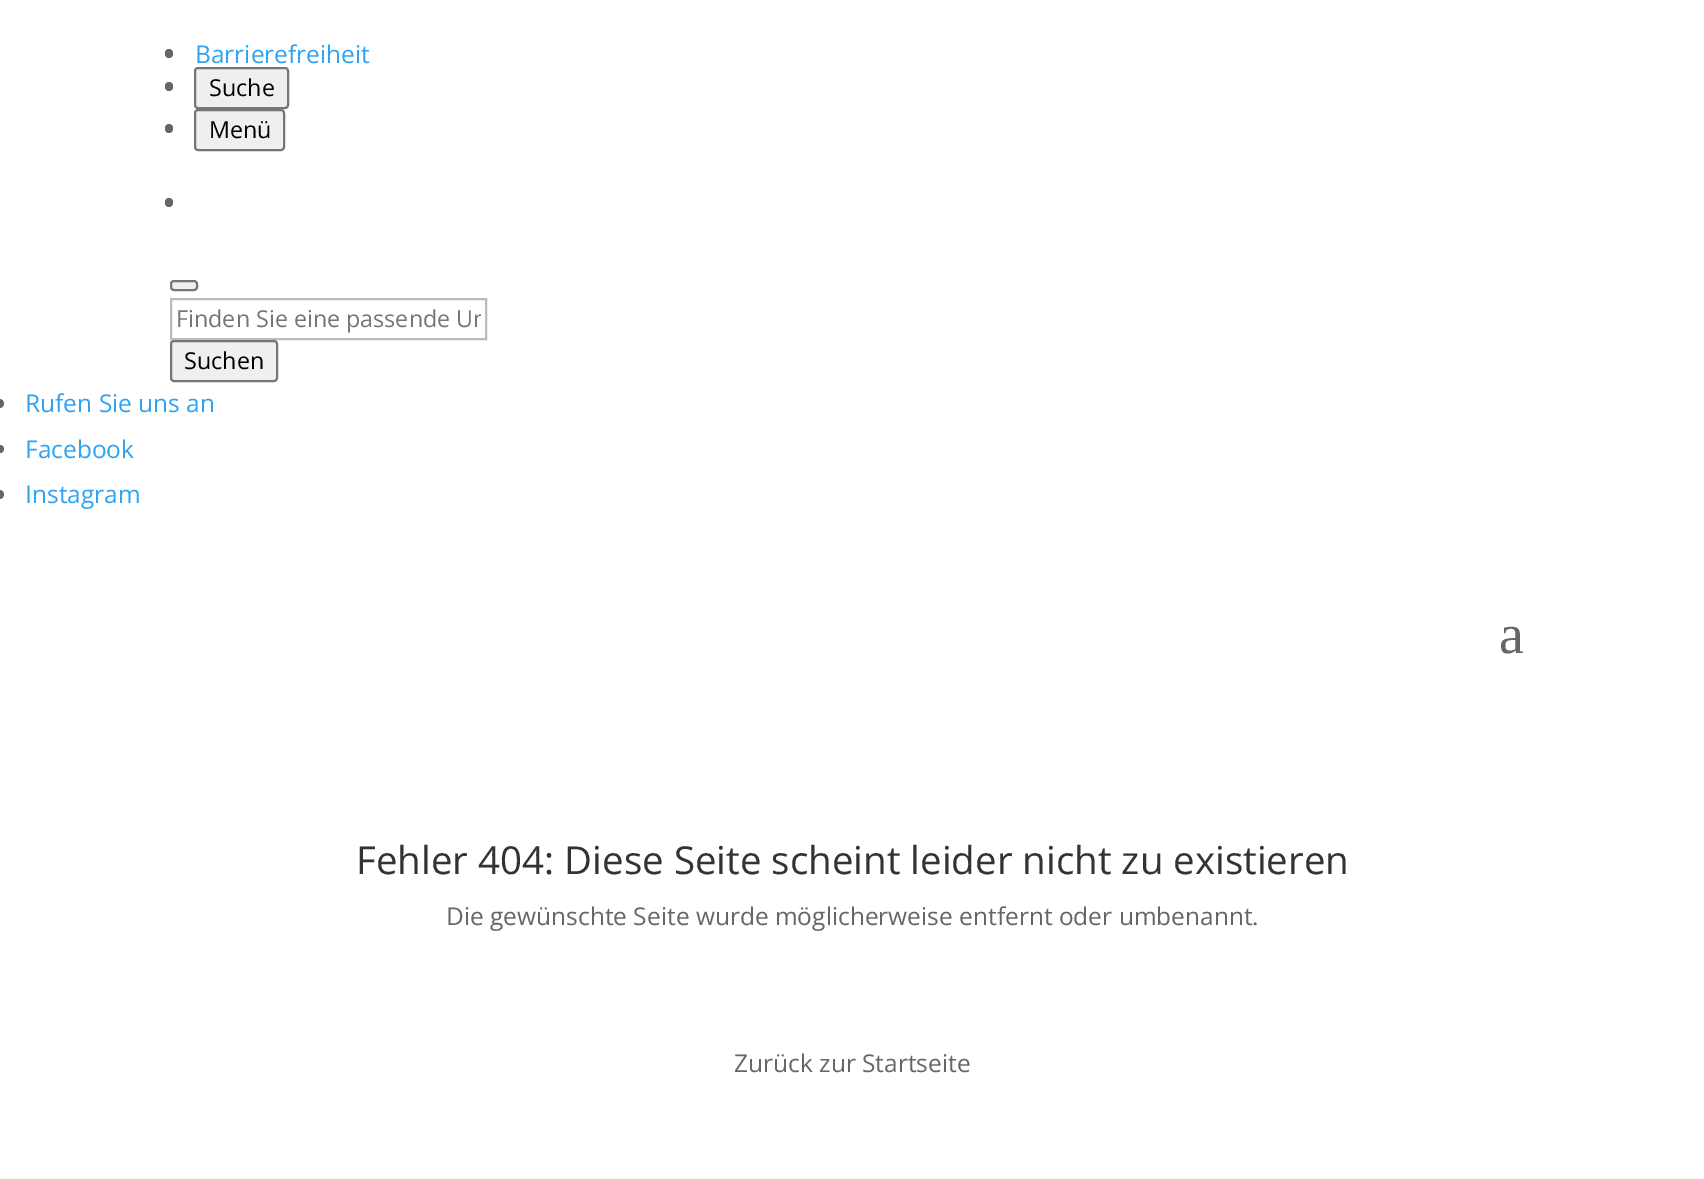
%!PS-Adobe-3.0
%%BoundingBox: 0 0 1704 1179
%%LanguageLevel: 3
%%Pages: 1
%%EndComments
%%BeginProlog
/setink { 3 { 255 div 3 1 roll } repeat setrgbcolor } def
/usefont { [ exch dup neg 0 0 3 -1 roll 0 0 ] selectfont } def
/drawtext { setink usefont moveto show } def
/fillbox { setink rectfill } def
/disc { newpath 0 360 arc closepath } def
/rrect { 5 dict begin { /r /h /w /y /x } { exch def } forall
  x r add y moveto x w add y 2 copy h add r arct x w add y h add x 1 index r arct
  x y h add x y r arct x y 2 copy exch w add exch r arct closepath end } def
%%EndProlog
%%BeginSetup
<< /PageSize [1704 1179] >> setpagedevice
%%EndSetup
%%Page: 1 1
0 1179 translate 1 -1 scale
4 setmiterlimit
0 0 1704 1179 255 255 255 fillbox
102 102 102 setink
165 49 8 9 4 rrect fill
(Barrierefreiheit) 195 63 /OpenSans-Regular 24.5 46 163 242 drawtext
102 102 102 setink
165 82 8 9 4 rrect fill
239 239 239 setink
195 68 93 40 3 rrect gsave fill grestore
118 118 118 setink
2 setlinewidth
stroke
(Suche) 209 96 /OpenSans-Regular 23.3 0 0 0 drawtext
102 102 102 setink
165 124 8 9 4 rrect fill
239 239 239 setink
195 110 89 40 3 rrect gsave fill grestore
118 118 118 setink
stroke
(Menü) 209 138 /OpenSans-Regular 23.3 0 0 0 drawtext
102 102 102 setink
165 198 8 9 4 rrect fill
239 239 239 setink
171 281 26 9 3 rrect gsave fill grestore
118 118 118 setink
stroke
187 187 187 setink
171 299 315 40 rectstroke
gsave
175 303 306 31 rectclip
(Finden Sie eine passende Un) 176 327 /OpenSans-Regular 23.3 117 117 117 drawtext
grestore
239 239 239 setink
171 341 106 40 3 rrect gsave fill grestore
118 118 118 setink
stroke
(Suchen) 184 369 /OpenSans-Regular 23.3 0 0 0 drawtext
102 102 102 setink
-0.5 403.5 4.5 disc fill
(Rufen Sie uns an) 25 412 /OpenSans-Regular 24.5 46 163 242 drawtext
102 102 102 setink
0 449 4 disc fill
(Facebook) 25 458 /OpenSans-Regular 24.5 46 163 242 drawtext
102 102 102 setink
-0.5 494.5 4.5 disc fill
(Instagram) 25 503 /OpenSans-Regular 24.5 46 163 242 drawtext
(a) 1499 653 /LiberationSerif-Regular 56 102 102 102 drawtext
(Fehler 404: Diese Seite scheint leider nicht zu existieren) 356 874 /OpenSans-Regular 38.5 51 51 51 drawtext
(Die gewünschte Seite wurde möglicherweise entfernt oder umbenannt.) 446 925 /OpenSans-Regular 24.5 102 102 102 drawtext
(Zurück zur Startseite) 734 1072 /OpenSans-Regular 24.5 102 102 102 drawtext
showpage
%%EOF
